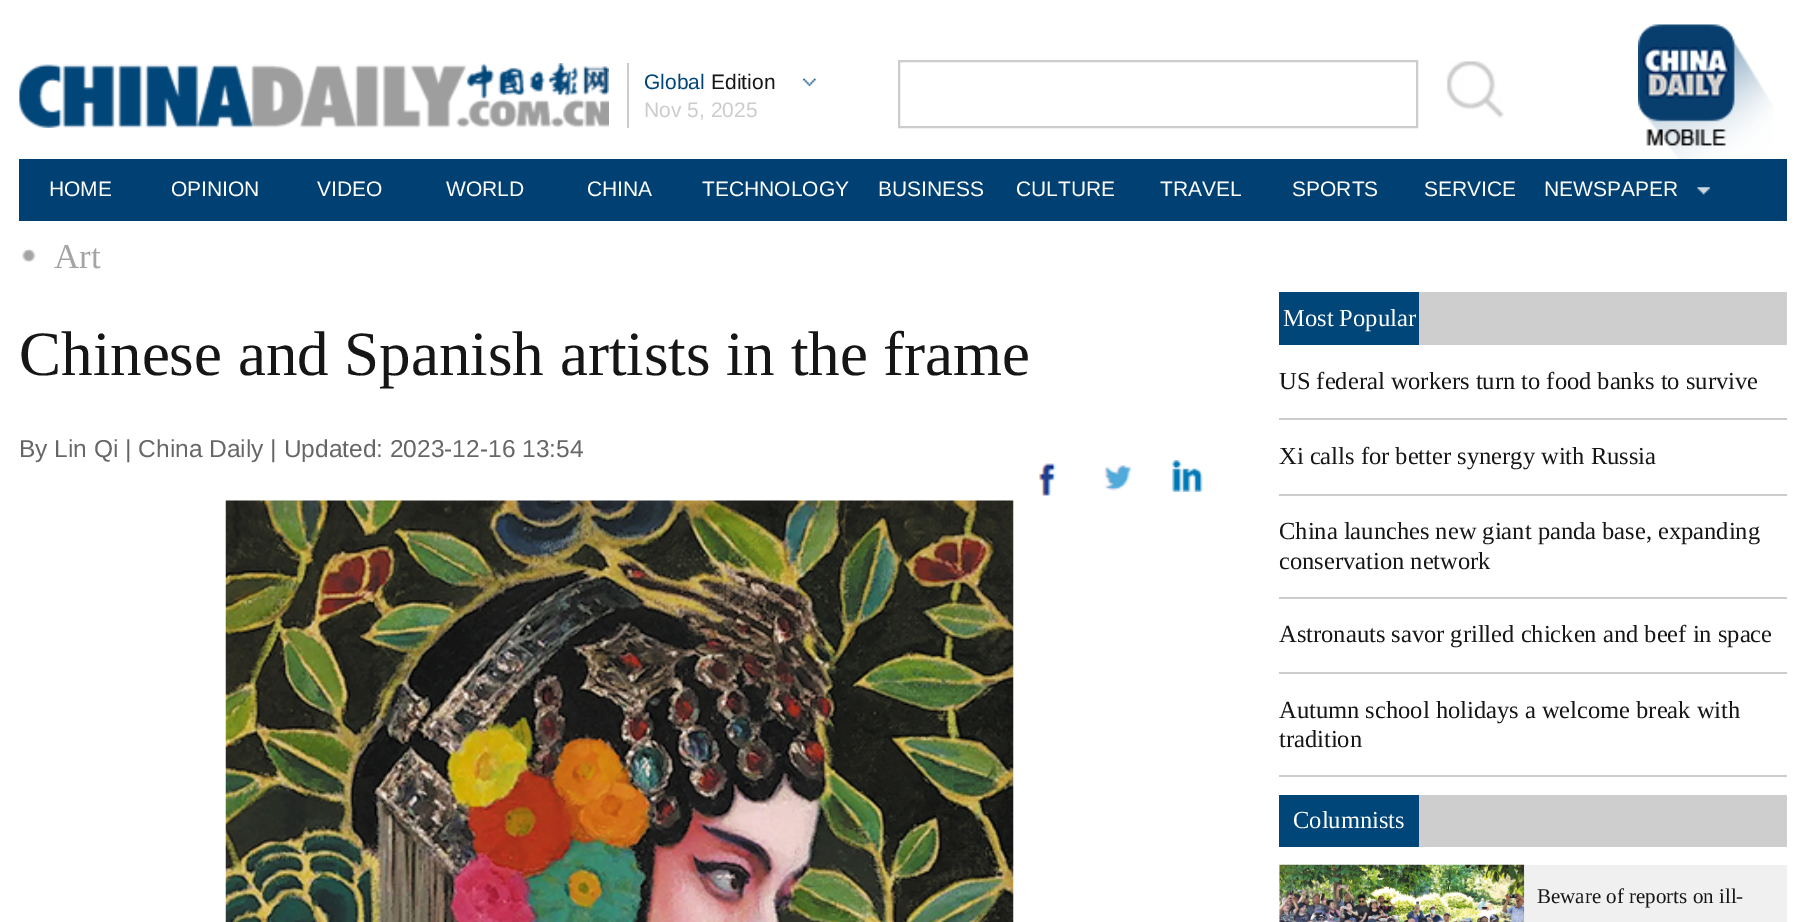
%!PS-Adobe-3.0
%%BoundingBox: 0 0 1805 922
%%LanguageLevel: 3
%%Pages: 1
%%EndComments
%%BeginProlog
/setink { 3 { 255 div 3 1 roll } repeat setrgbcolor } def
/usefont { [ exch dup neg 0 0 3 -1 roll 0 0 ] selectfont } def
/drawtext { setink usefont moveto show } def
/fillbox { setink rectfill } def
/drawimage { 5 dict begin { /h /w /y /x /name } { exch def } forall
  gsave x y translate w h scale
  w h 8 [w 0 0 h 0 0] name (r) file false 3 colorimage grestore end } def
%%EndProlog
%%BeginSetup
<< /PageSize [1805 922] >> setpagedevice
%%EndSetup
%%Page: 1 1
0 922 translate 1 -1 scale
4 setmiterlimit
0 0 1805 922 255 255 255 fillbox
627 63 2 65 204 204 204 fillbox
(assets/img1.rgb) 19 63 590 65 drawimage
(assets/img2.rgb) 803 78 13 8 drawimage
(Global) 644 89 /LiberationSans-Regular 21 0 70 121 drawtext
(Edition) 711 89 /LiberationSans-Regular 21 22 22 22 drawtext
(Nov 5, 2025) 644 117 /LiberationSans-Regular 21 204 204 204 drawtext
2 setlinewidth
899 61 518 66 rectstroke
(assets/img3.rgb) 1446 61 58 57 drawimage
(assets/img4.rgb) 1638 24 135 135 drawimage
19 159 1768 62 1 64 115 fillbox
(HOME) 49 196 /LiberationSans-Regular 21 255 255 255 drawtext
(OPINION) 171 196 /LiberationSans-Regular 21 255 255 255 drawtext
(VIDEO) 317 196 /LiberationSans-Regular 21 255 255 255 drawtext
(WORLD) 446 196 /LiberationSans-Regular 21 255 255 255 drawtext
(CHINA) 587 196 /LiberationSans-Regular 21 255 255 255 drawtext
(TECHNOLOGY) 702 196 /LiberationSans-Regular 21 255 255 255 drawtext
(BUSINESS) 878 196 /LiberationSans-Regular 21 255 255 255 drawtext
(CULTURE) 1016 196 /LiberationSans-Regular 21 255 255 255 drawtext
(TRAVEL) 1160 196 /LiberationSans-Regular 21 255 255 255 drawtext
(SPORTS) 1292 196 /LiberationSans-Regular 21 255 255 255 drawtext
(SERVICE) 1424 196 /LiberationSans-Regular 21 255 255 255 drawtext
(assets/img5.rgb) 1697 187 13 8 drawimage
(NEWSPAPER) 1544 196 /LiberationSans-Regular 21 255 255 255 drawtext
(assets/img6.rgb) 22 248 14 15 drawimage
(Art) 54 268 /LiberationSerif-Regular 35 164 164 166 drawtext
(Chinese and Spanish artists in the frame) 19 375 /LiberationSerif-Regular 63 22 22 22 drawtext
(By Lin Qi | China Daily | Updated: 2023-12-16 13:54) 19 457 /LiberationSans-Regular 24.5 102 102 102 drawtext
(assets/img7.rgb) 1037 463 19 33 drawimage
(assets/img8.rgb) 1104 465 29 26 drawimage
(assets/img9.rgb) 1172 460 31 32 drawimage
(assets/img10.rgb) 225 500 789 422 drawimage
1419 292 368 53 206 206 207 fillbox
1279 292 140 53 0 70 121 fillbox
(Most Popular) 1283 326 /LiberationSerif-Regular 24.5 255 255 255 drawtext
1279 418 508 2 204 204 204 fillbox
(US federal workers turn to food banks to survive) 1279 389 /LiberationSerif-Regular 24.5 22 22 22 drawtext
1279 494 508 2 204 204 204 fillbox
(Xi calls for better synergy with Russia) 1279 464 /LiberationSerif-Regular 24.5 22 22 22 drawtext
1279 597 508 2 204 204 204 fillbox
(China launches new giant panda base, expanding) 1279 539 /LiberationSerif-Regular 24.5 22 22 22 drawtext
(conservation network) 1279 569 /LiberationSerif-Regular 24.5 22 22 22 drawtext
1279 672 508 2 204 204 204 fillbox
(Astronauts savor grilled chicken and beef in space) 1279 642 /LiberationSerif-Regular 24.5 22 22 22 drawtext
1279 775 508 2 204 204 204 fillbox
(Autumn school holidays a welcome break with) 1279 718 /LiberationSerif-Regular 24.5 22 22 22 drawtext
(tradition) 1279 747 /LiberationSerif-Regular 24.5 22 22 22 drawtext
1419 795 368 52 206 206 207 fillbox
1279 795 140 52 0 70 121 fillbox
(Columnists) 1293 828 /LiberationSerif-Regular 24.5 255 255 255 drawtext
1524 865 263 57 240 240 240 fillbox
(assets/img11.rgb) 1279 864 246 58 drawimage
(Beware of reports on ill-) 1537 903 /LiberationSerif-Regular 21 22 22 22 drawtext
showpage
%%EOF
